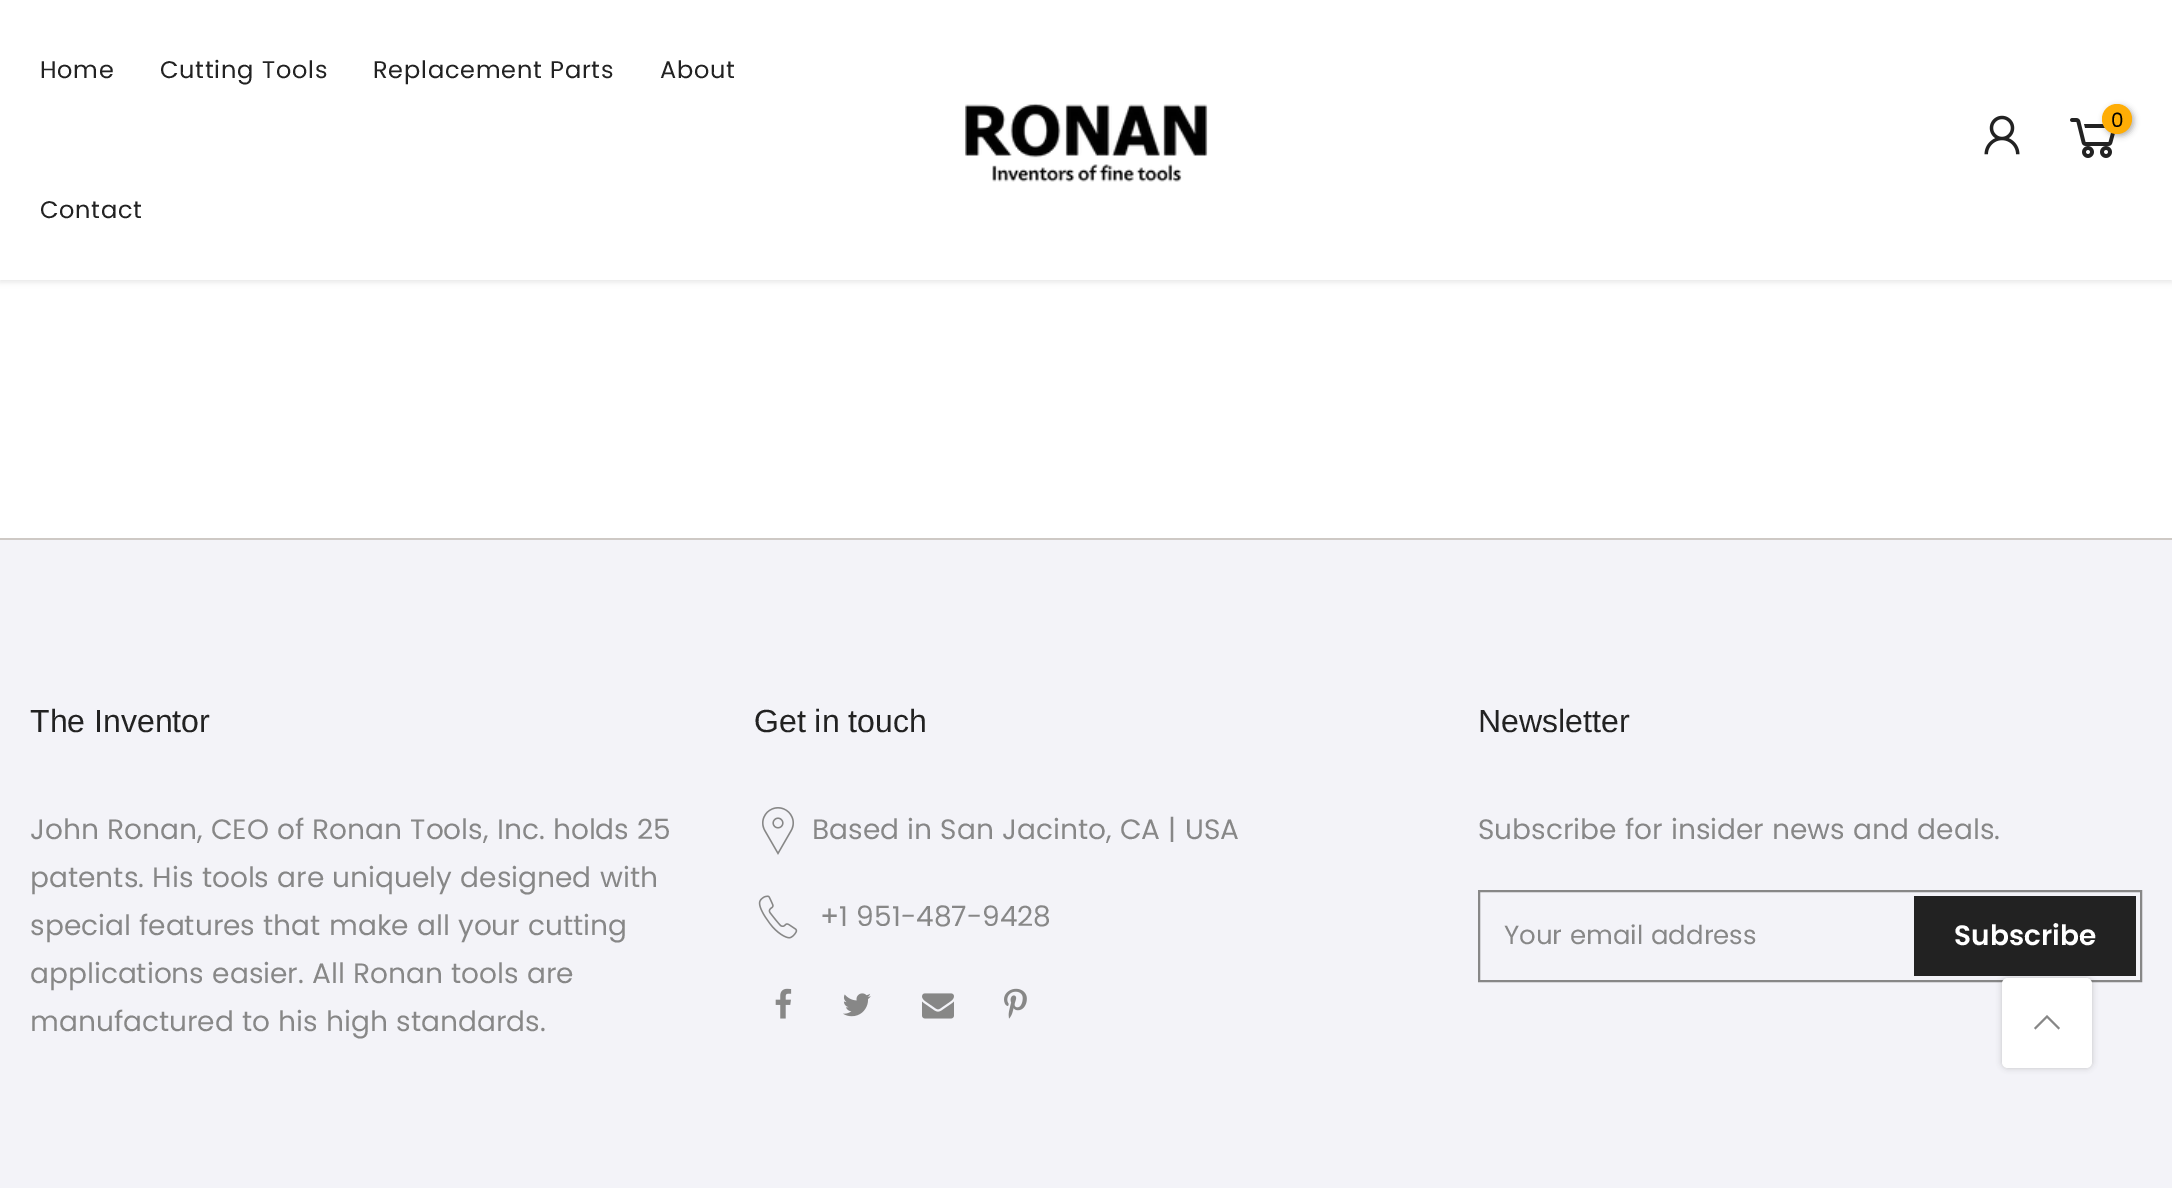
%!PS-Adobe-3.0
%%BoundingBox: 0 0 2172 1188
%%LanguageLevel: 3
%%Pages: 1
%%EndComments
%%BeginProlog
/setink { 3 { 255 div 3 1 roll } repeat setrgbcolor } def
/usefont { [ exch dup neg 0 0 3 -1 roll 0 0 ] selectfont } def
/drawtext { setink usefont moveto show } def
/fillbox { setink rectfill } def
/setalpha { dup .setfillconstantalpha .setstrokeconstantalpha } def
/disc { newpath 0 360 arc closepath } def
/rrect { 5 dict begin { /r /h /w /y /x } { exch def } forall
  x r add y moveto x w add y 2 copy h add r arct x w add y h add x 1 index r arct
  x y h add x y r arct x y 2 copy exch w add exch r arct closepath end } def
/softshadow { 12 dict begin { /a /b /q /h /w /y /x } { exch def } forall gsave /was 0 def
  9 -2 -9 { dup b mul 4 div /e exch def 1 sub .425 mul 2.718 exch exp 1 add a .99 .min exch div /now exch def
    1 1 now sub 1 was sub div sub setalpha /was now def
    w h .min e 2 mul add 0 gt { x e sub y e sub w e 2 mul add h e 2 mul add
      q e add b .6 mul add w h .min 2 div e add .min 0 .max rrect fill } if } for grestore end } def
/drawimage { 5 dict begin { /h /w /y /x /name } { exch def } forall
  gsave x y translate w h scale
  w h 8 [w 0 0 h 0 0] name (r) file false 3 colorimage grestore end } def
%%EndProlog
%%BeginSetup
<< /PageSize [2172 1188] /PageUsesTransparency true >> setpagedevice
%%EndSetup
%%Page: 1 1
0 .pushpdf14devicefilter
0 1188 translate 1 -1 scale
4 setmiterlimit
0 0 2172 1188 255 255 255 fillbox
0 0 0 setink
0 2 2172 280 0 3 0.1 softshadow
0 0 2172 280 255 255 255 fillbox
/Poppins-Regular 24 usefont
34 34 34 setink
40 78 moveto 0.75 0 (Home) ashow
160 78 moveto 0.75 0 (Cutting Tools) ashow
373 78 moveto 0.75 0 (Replacement Parts) ashow
660 78 moveto 0.75 0 (About) ashow
40 218 moveto 0.75 0 (Contact) ashow
(assets/img1.rgb) 965 103 243 79 drawimage
(assets/img2.rgb) 1984 115 36 40 drawimage
(assets/img3.rgb) 2070 118 45 40 drawimage
0 0 0 setink
2104 106 30 30 15 3 0.3 softshadow
255 173 5 setink
2117 119 15 disc fill
(0) 2111 127 /Poppins-Regular 20 0 0 0 drawtext
0 538 2172 2 206 201 197 fillbox
0 540 2172 648 243 243 248 fillbox
(The Inventor) 30 732 /LiberationSans-Regular 32 34 34 34 drawtext
(John Ronan, CEO of Ronan Tools, Inc. holds 25) 30 839 /Poppins-Regular 28 135 135 135 drawtext
(patents. His tools are uniquely designed with) 30 887 /Poppins-Regular 28 135 135 135 drawtext
(special features that make all your cutting) 30 935 /Poppins-Regular 28 135 135 135 drawtext
(applications easier. All Ronan tools are) 30 983 /Poppins-Regular 28 135 135 135 drawtext
(manufactured to his high standards.) 30 1031 /Poppins-Regular 28 135 135 135 drawtext
(Get in touch) 754 732 /LiberationSans-Regular 32 34 34 34 drawtext
(assets/img4.rgb) 762 807 32 48 drawimage
(Based in San Jacinto, CA | USA) 812 839 /Poppins-Regular 28 135 135 135 drawtext
(assets/img5.rgb) 758 895 40 44 drawimage
(+1 951-487-9428) 820 926 /Poppins-Regular 28 135 135 135 drawtext
(assets/img6.rgb) 775 988 17 31 drawimage
(assets/img7.rgb) 843 993 28 24 drawimage
(assets/img8.rgb) 922 993 32 26 drawimage
(assets/img9.rgb) 1004 988 23 31 drawimage
(Newsletter) 1478 732 /LiberationSans-Regular 32 34 34 34 drawtext
(Subscribe for insider news and deals.) 1478 839 /Poppins-Regular 28 135 135 135 drawtext
2 setlinewidth
1479 891 662 90 rectstroke
(Your email address) 1504 944 /Poppins-Regular 26 135 135 135 drawtext
1914 896 222 80 34 34 34 fillbox
(Subscribe) 1954 945 /Poppins-SemiBold 28 255 255 255 drawtext
0 0 0 setink
2002 978 90 90 6 3 0.2 softshadow
255 255 255 setink
2002 978 90 90 6 rrect fill
135 135 135 setink
2048.5 1016.5 moveto 2047 1015 lineto 2034 1028 lineto 2035.5 1029.5 lineto 2047 1018 lineto 2058.5 1029.5 lineto 2060 1028 lineto closepath fill
.poppdf14devicefilter showpage
%%EOF
